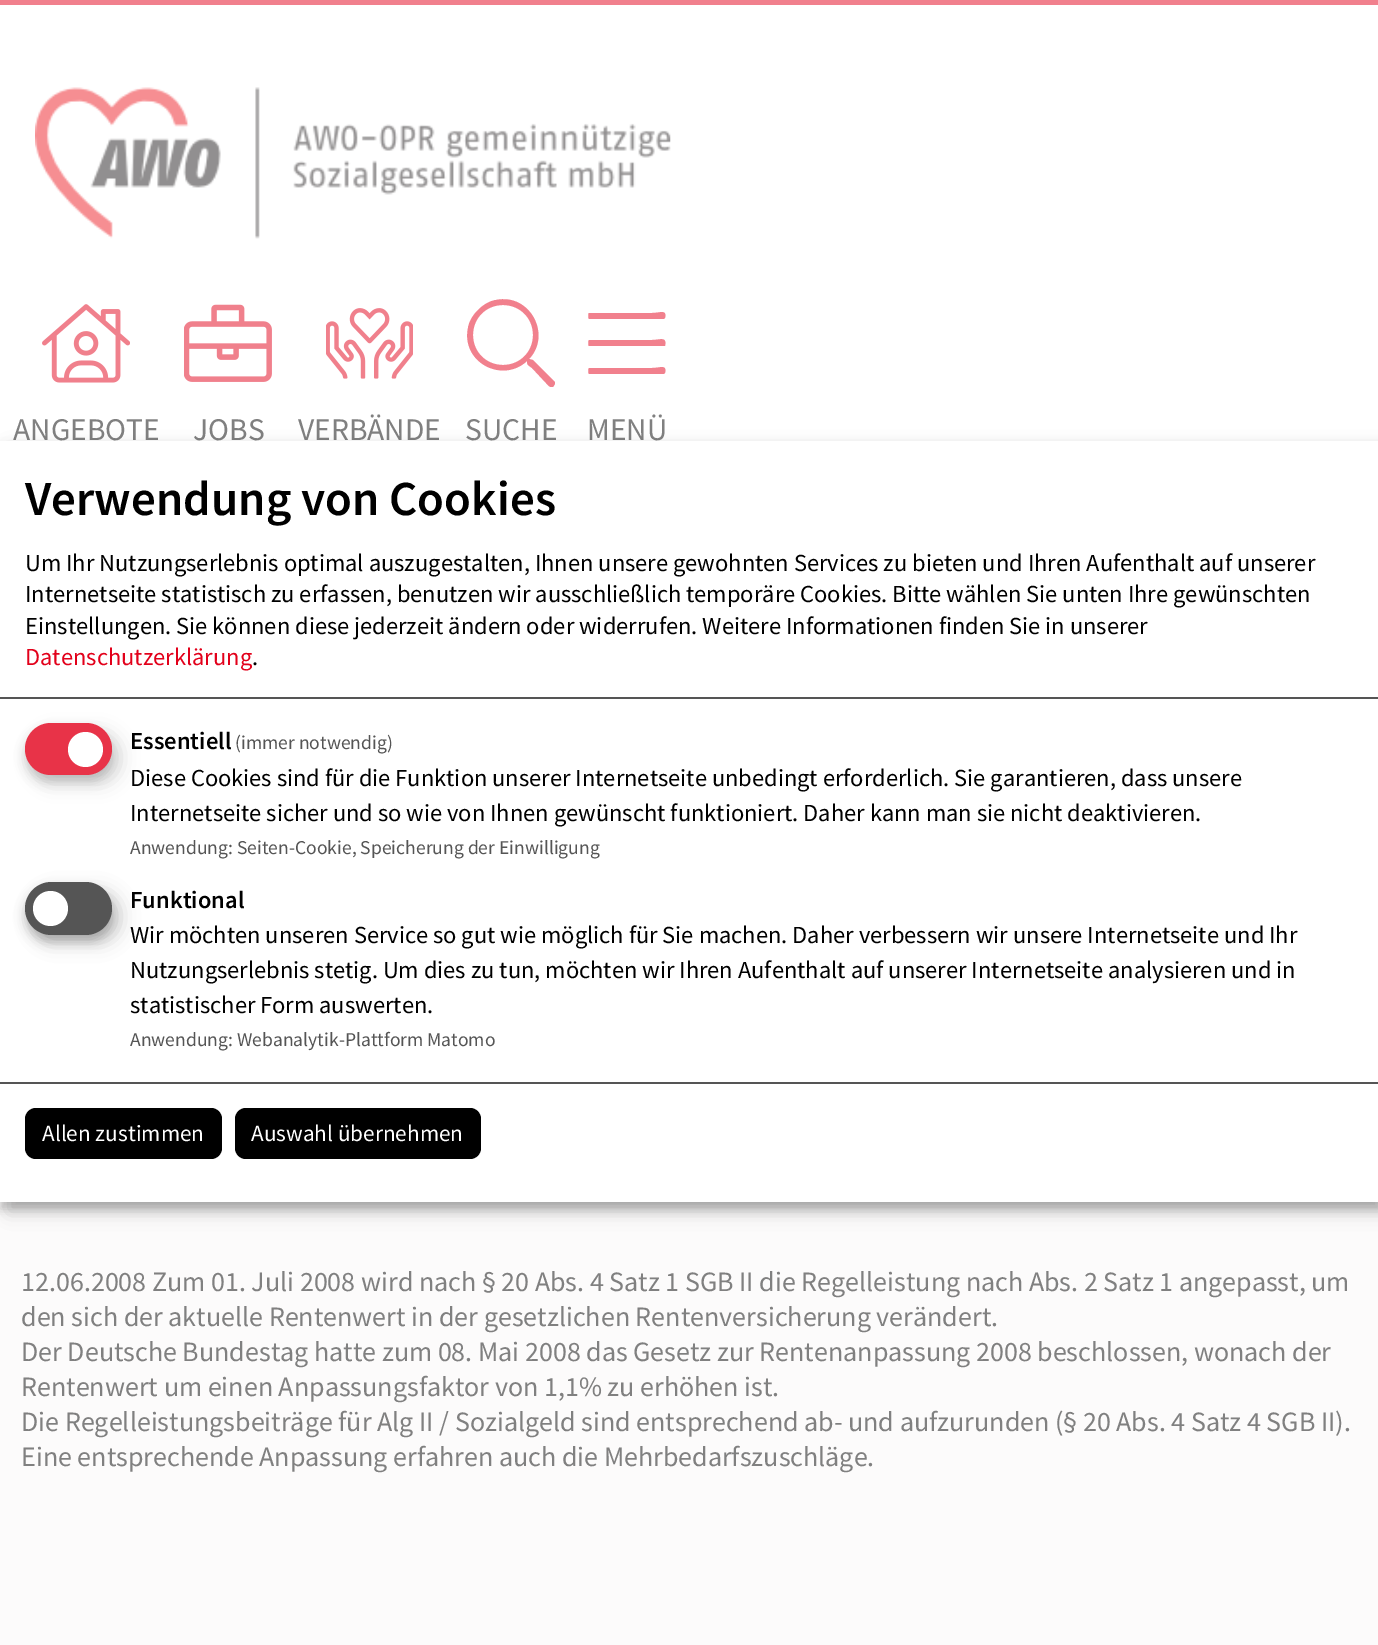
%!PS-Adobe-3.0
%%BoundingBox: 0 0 1378 1645
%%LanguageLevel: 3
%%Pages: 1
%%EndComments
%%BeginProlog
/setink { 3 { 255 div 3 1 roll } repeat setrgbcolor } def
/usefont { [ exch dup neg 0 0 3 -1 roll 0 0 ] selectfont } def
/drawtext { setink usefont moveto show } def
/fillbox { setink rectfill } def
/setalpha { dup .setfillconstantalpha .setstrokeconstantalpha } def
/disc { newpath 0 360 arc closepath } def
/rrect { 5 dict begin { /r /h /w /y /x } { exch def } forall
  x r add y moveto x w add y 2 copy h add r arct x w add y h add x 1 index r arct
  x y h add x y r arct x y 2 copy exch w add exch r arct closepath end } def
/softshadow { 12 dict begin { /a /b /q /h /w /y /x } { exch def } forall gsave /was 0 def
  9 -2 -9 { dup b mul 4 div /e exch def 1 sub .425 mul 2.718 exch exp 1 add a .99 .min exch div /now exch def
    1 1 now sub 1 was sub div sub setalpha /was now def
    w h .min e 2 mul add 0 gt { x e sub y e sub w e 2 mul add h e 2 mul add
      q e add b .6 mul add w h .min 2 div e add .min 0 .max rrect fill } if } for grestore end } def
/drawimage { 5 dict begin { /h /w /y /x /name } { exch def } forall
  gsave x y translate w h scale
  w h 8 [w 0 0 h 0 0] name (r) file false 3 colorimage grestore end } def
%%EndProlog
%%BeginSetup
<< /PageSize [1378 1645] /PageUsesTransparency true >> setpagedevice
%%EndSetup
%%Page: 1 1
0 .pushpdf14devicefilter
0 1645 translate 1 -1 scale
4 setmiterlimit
0 0 1378 1645 252 251 251 fillbox
0 5 1378 436 255 255 255 fillbox
0 0 1378 5 241 128 141 fillbox
(assets/img1.rgb) 35 87 636 152 drawimage
(assets/img2.rgb) 42 304 88 79 drawimage
(ANGEBOTE) 13 440 /SourceSansPro-Regular 31.5 128 128 128 drawtext
(assets/img3.rgb) 184 304 88 78 drawimage
(JOBS) 193 440 /SourceSansPro-Regular 31.5 128 128 128 drawtext
(assets/img4.rgb) 326 308 87 71 drawimage
(VERBÄNDE) 298 440 /SourceSansPro-Regular 31.5 128 128 128 drawtext
gsave
467 299 90 88 rectclip
241 128 141 setink
555 382 moveto 533 360 lineto 529 359 lineto 552 335 530 293 496 300 curveto 489 301 483 305 478 310 curveto 473 315 469 321 468 328 curveto 461 362 502 384 527 361 curveto 527 365 528 365 532 368 curveto 546 383 lineto 547 384 551 389 553 387 curveto 555 384 lineto closepath 503 365 moveto 486 365 473 352 473 335 curveto 473 318 486 305 503 305 curveto 520 305 533 318 533 335 curveto 533 352 520 365 503 365 curveto closepath fill
grestore
(SUCHE) 465 440 /SourceSansPro-Regular 31.5 128 128 128 drawtext
241 128 141 setink
664 319 moveto 589 319 lineto 588 318 588 313 589 313 curveto 652 313 lineto 660 313 667 309 665 318 curveto closepath 664 346 moveto 589 346 lineto 588 346 588 341 589 340 curveto 652 340 lineto 660 340 667 336 665 346 curveto closepath 664 374 moveto 589 374 lineto 588 373 588 369 589 368 curveto 652 368 lineto 660 368 667 364 665 373 curveto closepath fill
(MENÜ) 587 440 /SourceSansPro-Regular 31.5 128 128 128 drawtext
(12.06.2008 Zum 01. Juli 2008 wird nach § 20 Abs. 4 Satz 1 SGB II die Regelleistung nach Abs. 2 Satz 1 angepasst, um) 21 1291 /SourceSansPro-Regular 28 128 128 128 drawtext
(den sich der aktuelle Rentenwert in der gesetzlichen Rentenversicherung verändert.) 21 1326 /SourceSansPro-Regular 28 128 128 128 drawtext
(Der Deutsche Bundestag hatte zum 08. Mai 2008 das Gesetz zur Rentenanpassung 2008 beschlossen, wonach der) 21 1361 /SourceSansPro-Regular 28 128 128 128 drawtext
(Rentenwert um einen Anpassungsfaktor von 1,1% zu erhöhen ist.) 21 1396 /SourceSansPro-Regular 28 128 128 128 drawtext
(Die Regelleistungsbeiträge für Alg II / Sozialgeld sind entsprechend ab- und aufzurunden \(§ 20 Abs. 4 Satz 4 SGB II\).) 21 1431 /SourceSansPro-Regular 28 128 128 128 drawtext
(Eine entsprechende Anpassung erfahren auch die Mehrbedarfszuschläge.) 21 1466 /SourceSansPro-Regular 28 128 128 128 drawtext
0 0 0 setink
9 450 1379 761 0 9 0.19 softshadow
0 448 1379 761 0 5 0.2 softshadow
0 441 1378 761 255 255 255 fillbox
0 697 1378 2 85 85 85 fillbox
(Verwendung von Cookies) 25 515 /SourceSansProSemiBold-SemiBold 49 0 0 0 drawtext
(Um Ihr Nutzungserlebnis optimal auszugestalten, Ihnen unsere gewohnten Services zu bieten und Ihren Aufenthalt auf unserer) 25 571 /SourceSansPro-Regular 24.5 0 0 0 drawtext
(Internetseite statistisch zu erfassen, benutzen wir ausschließlich temporäre Cookies. Bitte wählen Sie unten Ihre gewünschten) 25 602 /SourceSansPro-Regular 24.5 0 0 0 drawtext
(Einstellungen. Sie können diese jederzeit ändern oder widerrufen. Weitere Informationen finden Sie in unserer) 25 634 /SourceSansPro-Regular 24.5 0 0 0 drawtext
(Datenschutzerklärung) 25 665 /SourceSansPro-Regular 24.5 226 0 26 drawtext
(.) 252 665 /SourceSansPro-Regular 24.5 0 0 0 drawtext
33 732 88 52 26 9 0.15 softshadow
51 51 51 setink
25 730 87 52 26 5 0.2 softshadow
232 51 72 setink
25 723 87 52 26 rrect fill
255 255 255 setink
85.5 749.5 17.5 disc fill
(Essentiell) 130 749 /SourceSansProSemiBold-SemiBold 24.5 0 0 0 drawtext
(\(immer notwendig\)) 235 749 /SourceSansPro-Regular 19.6 85 85 85 drawtext
(Diese Cookies sind für die Funktion unserer Internetseite unbedingt erforderlich. Sie garantieren, dass unsere) 130 786 /SourceSansPro-Regular 24.5 0 0 0 drawtext
(Internetseite sicher und so wie von Ihnen gewünscht funktioniert. Daher kann man sie nicht deaktivieren.) 130 821 /SourceSansPro-Regular 24.5 0 0 0 drawtext
(Anwendung: Seiten-Cookie, Speicherung der Einwilligung) 130 854 /SourceSansPro-Regular 19.6 85 85 85 drawtext
0 0 0 setink
33 891 88 52 26 9 0.19 softshadow
25 889 87 53 26.5 5 0.2 softshadow
85 85 85 setink
25 882 87 53 26.5 rrect fill
255 255 255 setink
50.5 908.5 17.5 disc fill
(Funktional) 130 908 /SourceSansProSemiBold-SemiBold 24.5 0 0 0 drawtext
(Wir möchten unseren Service so gut wie möglich für Sie machen. Daher verbessern wir unsere Internetseite und Ihr) 130 943 /SourceSansPro-Regular 24.5 0 0 0 drawtext
(Nutzungserlebnis stetig. Um dies zu tun, möchten wir Ihren Aufenthalt auf unserer Internetseite analysieren und in) 130 978 /SourceSansPro-Regular 24.5 0 0 0 drawtext
(statistischer Form auswerten.) 130 1013 /SourceSansPro-Regular 24.5 0 0 0 drawtext
(Anwendung: Webanalytik-Plattform Matomo) 130 1046 /SourceSansPro-Regular 19.6 85 85 85 drawtext
0 1082 1378 2 85 85 85 fillbox
0 0 0 setink
25 1108 197 51 11 rrect fill
(Allen zustimmen) 42 1141 /SourceSansPro-Regular 23.25 255 255 255 drawtext
0 0 0 setink
235 1108 246 51 11 rrect fill
(Auswahl übernehmen) 251 1141 /SourceSansPro-Regular 23.25 255 255 255 drawtext
.poppdf14devicefilter showpage
%%EOF
